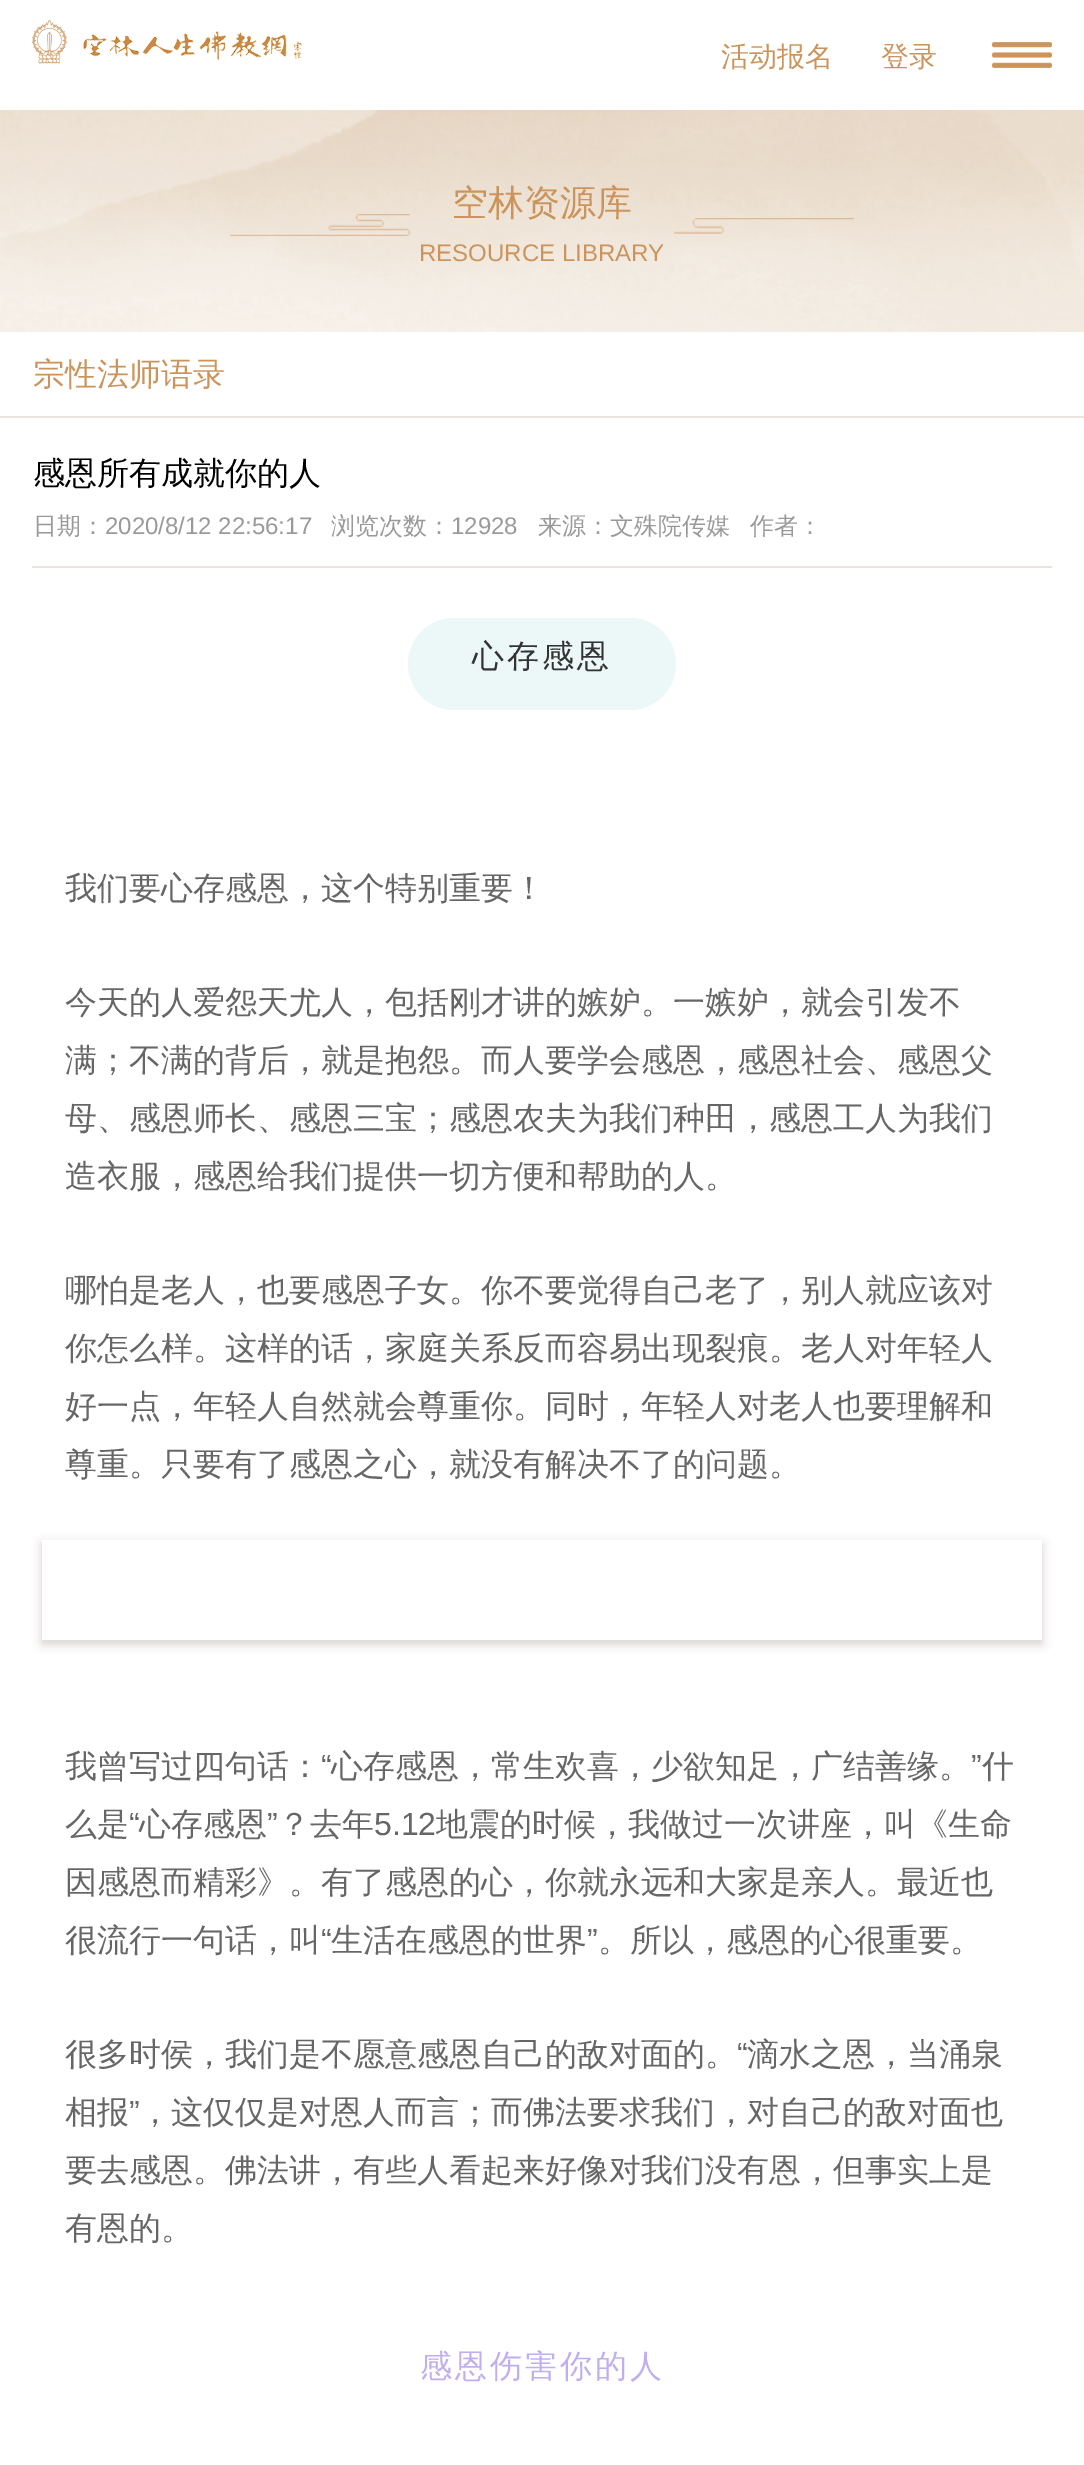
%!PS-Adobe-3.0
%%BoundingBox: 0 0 1084 2465
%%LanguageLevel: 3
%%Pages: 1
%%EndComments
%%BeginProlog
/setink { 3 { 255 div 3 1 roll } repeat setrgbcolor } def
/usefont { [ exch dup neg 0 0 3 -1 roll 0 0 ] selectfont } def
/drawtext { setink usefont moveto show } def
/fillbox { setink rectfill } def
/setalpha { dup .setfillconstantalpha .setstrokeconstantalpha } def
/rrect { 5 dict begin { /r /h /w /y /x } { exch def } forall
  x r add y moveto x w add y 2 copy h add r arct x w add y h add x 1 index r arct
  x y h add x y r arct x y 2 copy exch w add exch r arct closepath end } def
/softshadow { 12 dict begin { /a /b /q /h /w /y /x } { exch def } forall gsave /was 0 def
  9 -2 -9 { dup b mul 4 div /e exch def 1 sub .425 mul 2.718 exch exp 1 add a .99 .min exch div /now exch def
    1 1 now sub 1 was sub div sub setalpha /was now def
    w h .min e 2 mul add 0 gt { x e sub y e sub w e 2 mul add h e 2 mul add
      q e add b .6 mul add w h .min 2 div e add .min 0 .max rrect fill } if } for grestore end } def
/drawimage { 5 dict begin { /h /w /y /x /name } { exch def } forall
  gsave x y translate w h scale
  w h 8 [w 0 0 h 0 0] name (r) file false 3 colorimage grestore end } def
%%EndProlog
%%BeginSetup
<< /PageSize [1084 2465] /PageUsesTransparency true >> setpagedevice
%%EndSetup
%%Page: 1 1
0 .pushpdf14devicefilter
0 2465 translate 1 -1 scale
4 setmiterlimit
0 0 1084 2465 255 255 255 fillbox
(assets/img1.rgb) 32 20 270 44 drawimage
(活动报名) 721 66 /WenQuanYiZenHei-Medium 28 203 148 92 drawtext
(登录) 881 66 /WenQuanYiZenHei-Medium 28 203 148 92 drawtext
(assets/img2.rgb) 992 42 60 26 drawimage
(assets/img3.rgb) 0 110 1084 222 drawimage
(assets/img4.rgb) 230 214 624 22 drawimage
(空林资源库) 452 215 /WenQuanYiZenHei-Medium 36 203 148 92 drawtext
(RESOURCE LIBRARY) 419 261 /LiberationSans-Regular 24 203 148 92 drawtext
0 416 1084 2 236 227 222 fillbox
(宗性法师语录) 33 385 /WenQuanYiZenHei-Medium 32 203 148 92 drawtext
(感恩所有成就你的人) 33 484 /WenQuanYiZenHei-Medium 32 0 0 0 drawtext
32 566 1020 2 236 227 222 fillbox
(日期：) 33 534 /WenQuanYiZenHei-Medium 24 153 153 153 drawtext
(2020/8/12 22:56:17) 105 534 /LiberationSans-Regular 24 153 153 153 drawtext
(浏览次数：) 331 534 /WenQuanYiZenHei-Medium 24 153 153 153 drawtext
(12928) 451 534 /LiberationSans-Regular 24 153 153 153 drawtext
(来源：文殊院传媒) 538 534 /WenQuanYiZenHei-Medium 24 153 153 153 drawtext
(作者：) 750 534 /WenQuanYiZenHei-Medium 24 153 153 153 drawtext
236 247 248 setink
408 618 268 92 46 rrect fill
/WenQuanYiZenHei-Medium 32 usefont
51 51 51 setink
472 667 moveto 3 0 (心存感恩) ashow
(我们要心存感恩，这个特别重要！) 65 899 /WenQuanYiZenHei-Medium 32 102 102 102 drawtext
(今天的人爱怨天尤人，包括刚才讲的嫉妒。一嫉妒，就会引发不) 65 1013 /WenQuanYiZenHei-Medium 32 102 102 102 drawtext
(满；不满的背后，就是抱怨。而人要学会感恩，感恩社会、感恩父) 65 1071 /WenQuanYiZenHei-Medium 32 102 102 102 drawtext
(母、感恩师长、感恩三宝；感恩农夫为我们种田，感恩工人为我们) 65 1129 /WenQuanYiZenHei-Medium 32 102 102 102 drawtext
(造衣服，感恩给我们提供一切方便和帮助的人。) 65 1187 /WenQuanYiZenHei-Medium 32 102 102 102 drawtext
(哪怕是老人，也要感恩子女。你不要觉得自己老了，别人就应该对) 65 1301 /WenQuanYiZenHei-Medium 32 102 102 102 drawtext
(你怎么样。这样的话，家庭关系反而容易出现裂痕。老人对年轻人) 65 1359 /WenQuanYiZenHei-Medium 32 102 102 102 drawtext
(好一点，年轻人自然就会尊重你。同时，年轻人对老人也要理解和) 65 1417 /WenQuanYiZenHei-Medium 32 102 102 102 drawtext
(尊重。只要有了感恩之心，就没有解决不了的问题。) 65 1475 /WenQuanYiZenHei-Medium 32 102 102 102 drawtext
gsave
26 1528 moveto 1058 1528 lineto 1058 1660 lineto 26 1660 lineto closepath 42 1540 moveto 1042 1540 lineto 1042 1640 lineto 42 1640 lineto closepath eoclip newpath
214 206 206 setink
42 1544 1000 100 0 5 1 softshadow
grestore
(我曾写过四句话：) 65 1777 /WenQuanYiZenHei-Medium 32 102 102 102 drawtext
(“) 321 1777 /LiberationSans-Regular 32 102 102 102 drawtext
(心存感恩，常生欢喜，少欲知足，广结善缘。) 331 1777 /WenQuanYiZenHei-Medium 32 102 102 102 drawtext
(”) 971 1777 /LiberationSans-Regular 32 102 102 102 drawtext
(什) 982 1777 /WenQuanYiZenHei-Medium 32 102 102 102 drawtext
(么是) 65 1835 /WenQuanYiZenHei-Medium 32 102 102 102 drawtext
(“) 129 1835 /LiberationSans-Regular 32 102 102 102 drawtext
(心存感恩) 139 1835 /WenQuanYiZenHei-Medium 32 102 102 102 drawtext
(”) 267 1835 /LiberationSans-Regular 32 102 102 102 drawtext
(？去年) 278 1835 /WenQuanYiZenHei-Medium 32 102 102 102 drawtext
(5.12) 374 1835 /LiberationSans-Regular 32 102 102 102 drawtext
(地震的时候，我做过一次讲座，叫《生命) 436 1835 /WenQuanYiZenHei-Medium 32 102 102 102 drawtext
(因感恩而精彩》。有了感恩的心，你就永远和大家是亲人。最近也) 65 1893 /WenQuanYiZenHei-Medium 32 102 102 102 drawtext
(很流行一句话，叫) 65 1951 /WenQuanYiZenHei-Medium 32 102 102 102 drawtext
(“) 321 1951 /LiberationSans-Regular 32 102 102 102 drawtext
(生活在感恩的世界) 331 1951 /WenQuanYiZenHei-Medium 32 102 102 102 drawtext
(”) 587 1951 /LiberationSans-Regular 32 102 102 102 drawtext
(。所以，感恩的心很重要。) 598 1951 /WenQuanYiZenHei-Medium 32 102 102 102 drawtext
(很多时侯，我们是不愿意感恩自己的敌对面的。) 65 2065 /WenQuanYiZenHei-Medium 32 102 102 102 drawtext
(“) 737 2065 /LiberationSans-Regular 32 102 102 102 drawtext
(滴水之恩，当涌泉) 747 2065 /WenQuanYiZenHei-Medium 32 102 102 102 drawtext
(相报) 65 2123 /WenQuanYiZenHei-Medium 32 102 102 102 drawtext
(”) 129 2123 /LiberationSans-Regular 32 102 102 102 drawtext
(，这仅仅是对恩人而言；而佛法要求我们，对自己的敌对面也) 139 2123 /WenQuanYiZenHei-Medium 32 102 102 102 drawtext
(要去感恩。佛法讲，有些人看起来好像对我们没有恩，但事实上是) 65 2181 /WenQuanYiZenHei-Medium 32 102 102 102 drawtext
(有恩的。) 65 2239 /WenQuanYiZenHei-Medium 32 102 102 102 drawtext
192 174 238 setink
420 2377 moveto 3 0 (感恩伤害你的人) ashow
.poppdf14devicefilter showpage
%%EOF
